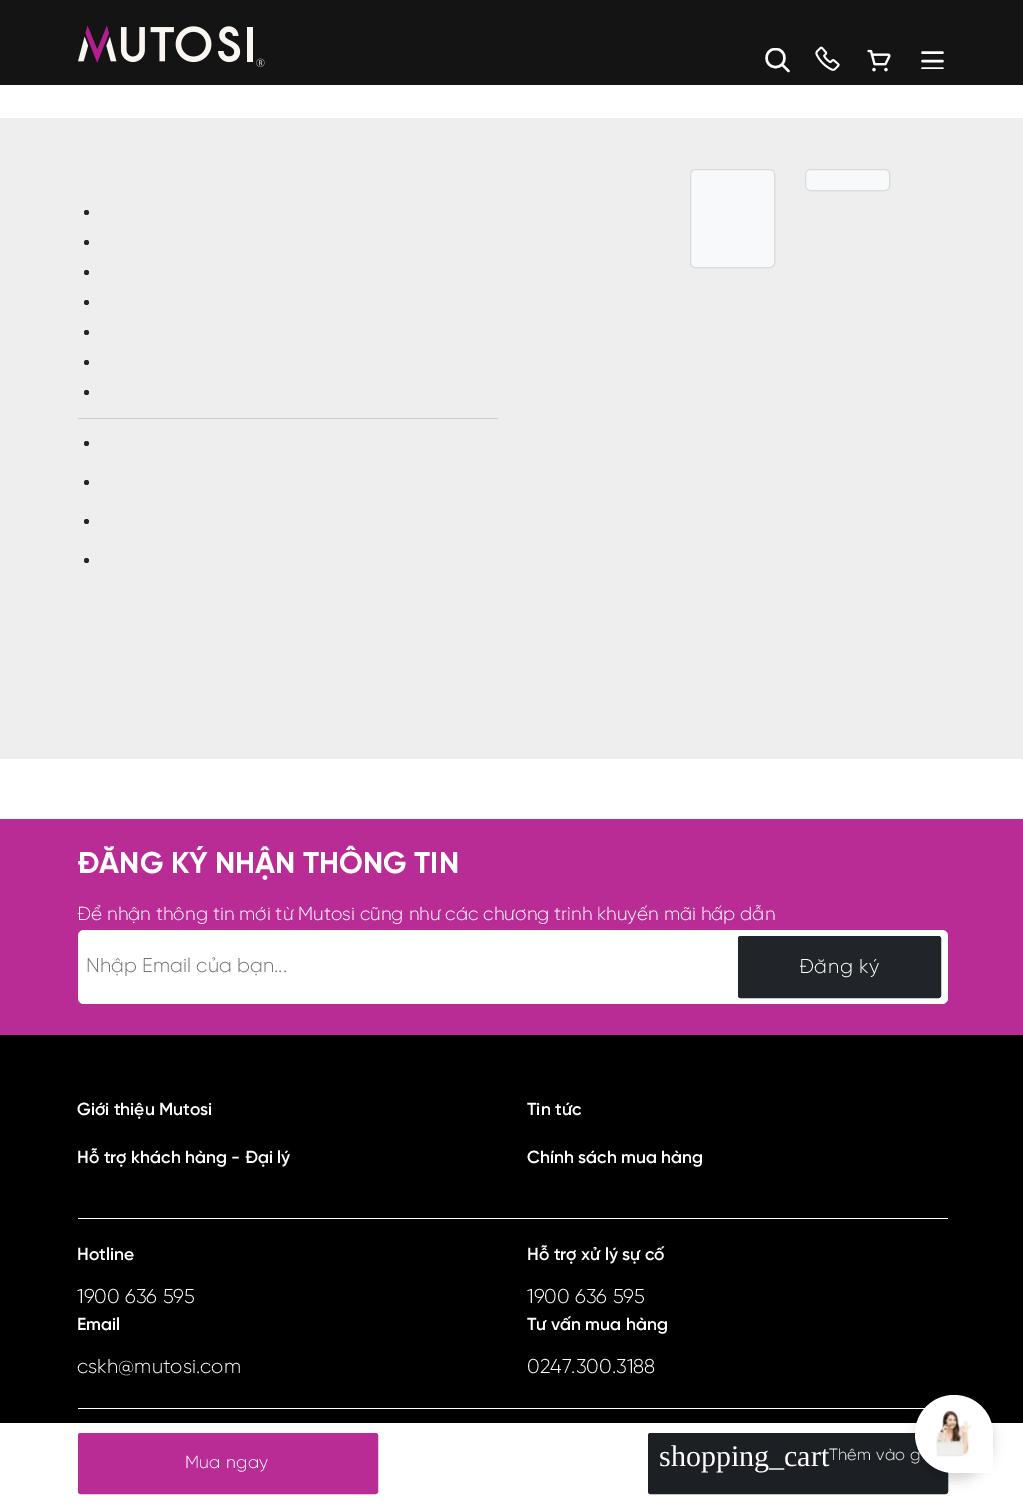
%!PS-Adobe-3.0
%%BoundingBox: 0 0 1023 1503
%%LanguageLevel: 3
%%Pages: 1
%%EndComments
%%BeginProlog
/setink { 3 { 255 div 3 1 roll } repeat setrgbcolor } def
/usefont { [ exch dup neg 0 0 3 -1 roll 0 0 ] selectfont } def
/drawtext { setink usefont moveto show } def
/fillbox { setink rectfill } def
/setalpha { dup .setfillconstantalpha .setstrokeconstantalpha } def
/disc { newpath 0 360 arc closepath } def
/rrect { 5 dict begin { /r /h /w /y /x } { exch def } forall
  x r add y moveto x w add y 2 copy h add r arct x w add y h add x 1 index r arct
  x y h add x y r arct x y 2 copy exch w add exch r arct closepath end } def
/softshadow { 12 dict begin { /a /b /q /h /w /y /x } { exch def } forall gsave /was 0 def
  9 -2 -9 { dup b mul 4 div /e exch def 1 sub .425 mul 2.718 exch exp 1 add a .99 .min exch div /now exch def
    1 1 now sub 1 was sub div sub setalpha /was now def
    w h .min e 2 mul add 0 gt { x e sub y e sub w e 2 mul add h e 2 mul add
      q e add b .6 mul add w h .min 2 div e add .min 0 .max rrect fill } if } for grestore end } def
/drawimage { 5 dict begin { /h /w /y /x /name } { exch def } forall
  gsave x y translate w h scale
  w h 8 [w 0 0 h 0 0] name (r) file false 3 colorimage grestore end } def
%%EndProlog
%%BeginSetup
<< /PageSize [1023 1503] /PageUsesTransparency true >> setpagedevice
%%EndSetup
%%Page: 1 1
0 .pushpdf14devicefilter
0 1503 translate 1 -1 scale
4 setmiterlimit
0 0 1023 1503 255 255 255 fillbox
0 0 1023 85 20 20 20 fillbox
(assets/img1.rgb) 78 25 187 42 drawimage
255 255 255 setink
2.4 setlinewidth
1 setlinecap
1 setlinejoin
783 65.5 moveto 788.5 71 lineto stroke
gsave
765 48 25 25 rectclip
775.5 67 moveto 787.5 67 787.5 49 775.5 49 curveto 763.5 49 763.5 67 775.5 67 curveto closepath stroke
grestore
(assets/img2.rgb) 815 46 25 25 drawimage
(assets/img3.rgb) 867 49 24 23 drawimage
2.5 setlinewidth
0 setlinejoin
922.5 52.5 moveto 942.5 52.5 lineto 922.5 61 moveto 942.5 61 lineto stroke
gsave
921 51 23 18 rectclip
922.5 68.5 moveto 942.5 68.5 lineto stroke
grestore
0 819 1023 216 185 44 149 fillbox
(ĐĂNG KÝ NHẬN THÔNG TIN) 77 873 /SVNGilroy-Bold 30 255 255 255 drawtext
(Để nhận thông tin mới từ Mutosi cũng như các chương trình khuyến mãi hấp dẫn) 77 920 /SVNGilroy-Light 18.75 255 255 255 drawtext
78 930 870 74 6 rrect fill
(Nhập Email của bạn...) 86 972 /SVNGilroy-Light 20 117 117 117 drawtext
33 37 41 setink
738.5 936.5 202 61 2 rrect gsave fill grestore
1 setlinewidth
0 setlinecap
stroke
255 255 255 setink
799 973 moveto 0.5 0 (Đăng ký) ashow
0 1035 1023 388 0 0 0 fillbox
(Giới thiệu Mutosi) 77 1115 /SVNGilroy-SemiBold 17.5 255 255 255 drawtext
(Tin tức) 527 1115 /SVNGilroy-SemiBold 17.5 255 255 255 drawtext
(Hỗ trợ khách hàng - Đại lý) 77 1163 /SVNGilroy-SemiBold 17.5 255 255 255 drawtext
(Chính sách mua hàng) 527 1163 /SVNGilroy-SemiBold 17.5 255 255 255 drawtext
78 1218 870 1 255 255 255 fillbox
(Hotline) 77 1260 /SVNGilroy-SemiBold 17.5 255 255 255 drawtext
(1900 636 595) 77 1303 /SVNGilroy-Light 20 255 255 255 drawtext
(Hỗ trợ xử lý sự cố) 527 1260 /SVNGilroy-SemiBold 17.5 255 255 255 drawtext
(1900 636 595) 527 1303 /SVNGilroy-Light 20 255 255 255 drawtext
(Email) 77 1330 /SVNGilroy-SemiBold 17.5 255 255 255 drawtext
(cskh@mutosi.com) 77 1373 /SVNGilroy-Light 20 255 255 255 drawtext
(Tư vấn mua hàng) 527 1330 /SVNGilroy-SemiBold 17.5 255 255 255 drawtext
(0247.300.3188) 527 1373 /SVNGilroy-Light 20 255 255 255 drawtext
78 1408 847 1 255 255 255 fillbox
0 118 1023 641 238 238 238 fillbox
78 418 420 1 204 204 204 fillbox
33 37 41 setink
86.5 212.5 2.5 disc fill
86.5 242.5 2.5 disc fill
86.5 272.5 2.5 disc fill
86.5 302.5 2.5 disc fill
86.5 332.5 2.5 disc fill
86.5 362.5 2.5 disc fill
86.5 392.5 2.5 disc fill
86.5 443.5 2.5 disc fill
86.5 482.5 2.5 disc fill
86.5 521.5 2.5 disc fill
86.5 560.5 2.5 disc fill
248 249 250 setink
690 169 85 99 5 rrect fill
0.12 setalpha
0 0 0 setink
690.5 169.5 84 98 4.5 rrect stroke
1 setalpha
248 249 250 setink
805 169 85 22 5 rrect fill
0.12 setalpha
0 0 0 setink
805.5 169.5 84 21 4.5 rrect stroke
1 setalpha
185 44 149 setink
78.5 1433.5 299 60 2 rrect gsave fill grestore
stroke
/SVNGilroy-Light 17.5 usefont
255 255 255 setink
185 1468 moveto 0.25 0 (Mua ngay) ashow
28 31 35 setink
648.5 1433.5 299 60 2 rrect gsave fill grestore
stroke
/SVNGilroy-Light 16.25 usefont
255 255 255 setink
829 1460 moveto 0.25 0 (Thêm vào g) ashow
(shopping_cart) 659 1466 /LiberationSerif-Regular 30 255 255 255 drawtext
0 0 0 setink
915 1403 78 77 38.5 6 0.16 softshadow
255 255 255 setink
954 1395 moveto 975.5 1395 993 1412.5 993 1434 curveto 993 1473 lineto 954 1473 lineto 932.5 1473 915 1455.5 915 1434 curveto 915 1412.5 932.5 1395 954 1395 curveto closepath fill
(assets/img4.rgb) 936 1411 36 46 drawimage
.poppdf14devicefilter showpage
%%EOF
